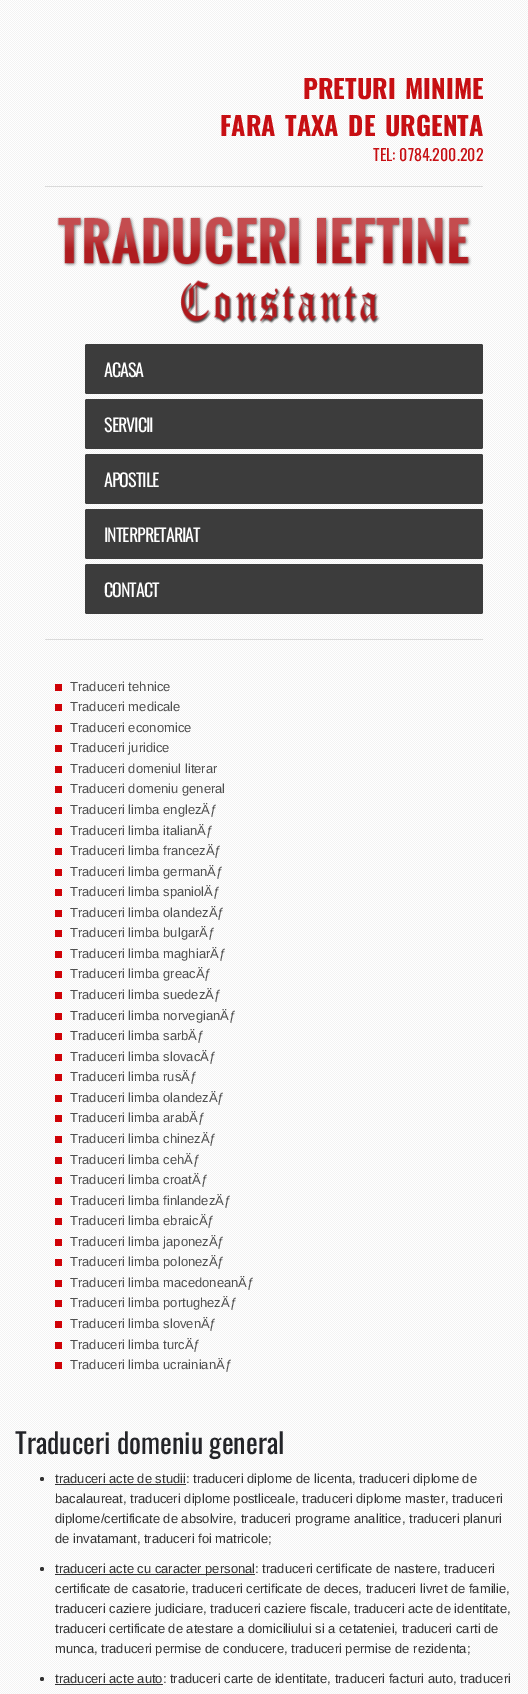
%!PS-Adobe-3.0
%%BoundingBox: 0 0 528 1694
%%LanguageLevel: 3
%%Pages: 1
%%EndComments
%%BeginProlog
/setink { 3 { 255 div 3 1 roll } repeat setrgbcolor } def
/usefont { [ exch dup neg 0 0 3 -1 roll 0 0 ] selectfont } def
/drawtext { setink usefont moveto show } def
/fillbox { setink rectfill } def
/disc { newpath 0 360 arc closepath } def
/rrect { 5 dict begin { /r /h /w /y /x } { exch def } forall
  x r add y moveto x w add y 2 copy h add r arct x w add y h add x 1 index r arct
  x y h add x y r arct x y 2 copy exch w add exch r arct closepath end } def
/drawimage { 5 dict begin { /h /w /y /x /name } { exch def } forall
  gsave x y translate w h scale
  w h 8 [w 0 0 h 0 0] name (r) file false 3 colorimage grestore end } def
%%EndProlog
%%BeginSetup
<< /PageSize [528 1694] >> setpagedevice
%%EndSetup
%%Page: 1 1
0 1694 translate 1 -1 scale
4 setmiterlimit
0 0 528 1694 255 255 255 fillbox
(assets/img1.rgb) 0 0 528 1694 drawimage
/Oswald-Bold 26 usefont
199 15 19 setink
303 99 moveto 3 0 32 (PRETURI MINIME) widthshow
220 136 moveto 3 0 32 (FARA TAXA DE URGENTA) widthshow
(TEL: 0784.200.202) 373 161 /Oswald-Regular 16 199 15 19 drawtext
45 186 438 1 218 218 218 fillbox
45 639 438 1 218 218 218 fillbox
(assets/img2.rgb) 57 216 415 108 drawimage
60 60 60 setink
85 344 398 50 2 rrect fill
/Oswald-Regular 18 usefont
255 255 255 setink
104 377 moveto -1 0 (ACASA) ashow
60 60 60 setink
85 399 398 50 2 rrect fill
255 255 255 setink
104 432 moveto -1 0 (SERVICII) ashow
60 60 60 setink
85 454 398 50 2 rrect fill
255 255 255 setink
104 487 moveto -1 0 (APOSTILE) ashow
60 60 60 setink
85 509 398 50 2 rrect fill
255 255 255 setink
104 542 moveto -1 0 (INTERPRETARIAT) ashow
60 60 60 setink
85 564 398 50 2 rrect fill
255 255 255 setink
104 597 moveto -1 0 (CONTACT) ashow
55 684 7 7 207 2 7 fillbox
(Traduceri tehnice) 70 691 /LiberationSans-Regular 13 79 79 79 drawtext
55 704 7 7 207 2 7 fillbox
(Traduceri medicale) 70 711 /LiberationSans-Regular 13 79 79 79 drawtext
55 725 7 7 207 2 7 fillbox
(Traduceri economice) 70 732 /LiberationSans-Regular 13 79 79 79 drawtext
55 745 7 7 207 2 7 fillbox
(Traduceri juridice) 70 752 /LiberationSans-Regular 13 79 79 79 drawtext
55 766 7 7 207 2 7 fillbox
(Traduceri domeniul literar) 70 773 /LiberationSans-Regular 13 79 79 79 drawtext
55 786 7 7 207 2 7 fillbox
(Traduceri domeniu general) 70 793 /LiberationSans-Regular 13 79 79 79 drawtext
55 807 7 7 207 2 7 fillbox
(Traduceri limba englezÄƒ) 70 814 /LiberationSans-Regular 13 79 79 79 drawtext
55 828 7 7 207 2 7 fillbox
(Traduceri limba italianÄƒ) 70 835 /LiberationSans-Regular 13 79 79 79 drawtext
55 848 7 7 207 2 7 fillbox
(Traduceri limba francezÄƒ) 70 855 /LiberationSans-Regular 13 79 79 79 drawtext
55 869 7 7 207 2 7 fillbox
(Traduceri limba germanÄƒ) 70 876 /LiberationSans-Regular 13 79 79 79 drawtext
55 889 7 7 207 2 7 fillbox
(Traduceri limba spaniolÄƒ) 70 896 /LiberationSans-Regular 13 79 79 79 drawtext
55 910 7 7 207 2 7 fillbox
(Traduceri limba olandezÄƒ) 70 917 /LiberationSans-Regular 13 79 79 79 drawtext
55 930 7 7 207 2 7 fillbox
(Traduceri limba bulgarÄƒ) 70 937 /LiberationSans-Regular 13 79 79 79 drawtext
55 951 7 7 207 2 7 fillbox
(Traduceri limba maghiarÄƒ) 70 958 /LiberationSans-Regular 13 79 79 79 drawtext
55 971 7 7 207 2 7 fillbox
(Traduceri limba greacÄƒ) 70 978 /LiberationSans-Regular 13 79 79 79 drawtext
55 992 7 7 207 2 7 fillbox
(Traduceri limba suedezÄƒ) 70 999 /LiberationSans-Regular 13 79 79 79 drawtext
55 1013 7 7 207 2 7 fillbox
(Traduceri limba norvegianÄƒ) 70 1020 /LiberationSans-Regular 13 79 79 79 drawtext
55 1033 7 7 207 2 7 fillbox
(Traduceri limba sarbÄƒ) 70 1040 /LiberationSans-Regular 13 79 79 79 drawtext
55 1054 7 7 207 2 7 fillbox
(Traduceri limba slovacÄƒ) 70 1061 /LiberationSans-Regular 13 79 79 79 drawtext
55 1074 7 7 207 2 7 fillbox
(Traduceri limba rusÄƒ) 70 1081 /LiberationSans-Regular 13 79 79 79 drawtext
55 1095 7 7 207 2 7 fillbox
(Traduceri limba olandezÄƒ) 70 1102 /LiberationSans-Regular 13 79 79 79 drawtext
55 1115 7 7 207 2 7 fillbox
(Traduceri limba arabÄƒ) 70 1122 /LiberationSans-Regular 13 79 79 79 drawtext
55 1136 7 7 207 2 7 fillbox
(Traduceri limba chinezÄƒ) 70 1143 /LiberationSans-Regular 13 79 79 79 drawtext
55 1157 7 7 207 2 7 fillbox
(Traduceri limba cehÄƒ) 70 1164 /LiberationSans-Regular 13 79 79 79 drawtext
55 1177 7 7 207 2 7 fillbox
(Traduceri limba croatÄƒ) 70 1184 /LiberationSans-Regular 13 79 79 79 drawtext
55 1198 7 7 207 2 7 fillbox
(Traduceri limba finlandezÄƒ) 70 1205 /LiberationSans-Regular 13 79 79 79 drawtext
55 1218 7 7 207 2 7 fillbox
(Traduceri limba ebraicÄƒ) 70 1225 /LiberationSans-Regular 13 79 79 79 drawtext
55 1239 7 7 207 2 7 fillbox
(Traduceri limba japonezÄƒ) 70 1246 /LiberationSans-Regular 13 79 79 79 drawtext
55 1259 7 7 207 2 7 fillbox
(Traduceri limba polonezÄƒ) 70 1266 /LiberationSans-Regular 13 79 79 79 drawtext
55 1280 7 7 207 2 7 fillbox
(Traduceri limba macedoneanÄƒ) 70 1287 /LiberationSans-Regular 13 79 79 79 drawtext
55 1300 7 7 207 2 7 fillbox
(Traduceri limba portughezÄƒ) 70 1307 /LiberationSans-Regular 13 79 79 79 drawtext
55 1321 7 7 207 2 7 fillbox
(Traduceri limba slovenÄƒ) 70 1328 /LiberationSans-Regular 13 79 79 79 drawtext
55 1342 7 7 207 2 7 fillbox
(Traduceri limba turcÄƒ) 70 1349 /LiberationSans-Regular 13 79 79 79 drawtext
55 1362 7 7 207 2 7 fillbox
(Traduceri limba ucrainianÄƒ) 70 1369 /LiberationSans-Regular 13 79 79 79 drawtext
(Traduceri domeniu general) 15 1454 /Oswald-Regular 28 35 36 40 drawtext
51 51 51 setink
42 1479 2 disc fill
55 1484 131 1 51 51 51 fillbox
(traduceri acte de studii: traduceri diplome de licenta, traduceri diplome de) 55 1483 /LiberationSans-Regular 13 51 51 51 drawtext
(bacalaureat, traduceri diplome postliceale, traduceri diplome master, traduceri) 55 1503 /LiberationSans-Regular 13 51 51 51 drawtext
(diplome/certificate de absolvire, traduceri programe analitice, traduceri planuri) 55 1523 /LiberationSans-Regular 13 51 51 51 drawtext
(de invatamant, traduceri foi matricole;) 55 1543 /LiberationSans-Regular 13 51 51 51 drawtext
42 1569 2 disc fill
55 1574 200 1 51 51 51 fillbox
(traduceri acte cu caracter personal: traduceri certificate de nastere, traduceri) 55 1573 /LiberationSans-Regular 13 51 51 51 drawtext
(certificate de casatorie, traduceri certificate de deces, traduceri livret de familie,) 55 1593 /LiberationSans-Regular 13 51 51 51 drawtext
(traduceri caziere judiciare, traduceri caziere fiscale, traduceri acte de identitate,) 55 1613 /LiberationSans-Regular 13 51 51 51 drawtext
(traduceri certificate de atestare a domiciliului si a cetateniei, traduceri carti de) 55 1633 /LiberationSans-Regular 13 51 51 51 drawtext
(munca, traduceri permise de conducere, traduceri permise de rezidenta;) 55 1653 /LiberationSans-Regular 13 51 51 51 drawtext
42 1679 2 disc fill
55 1684 108 1 51 51 51 fillbox
(traduceri acte auto: traduceri carte de identitate, traduceri facturi auto, traduceri) 55 1683 /LiberationSans-Regular 13 51 51 51 drawtext
showpage
%%EOF
